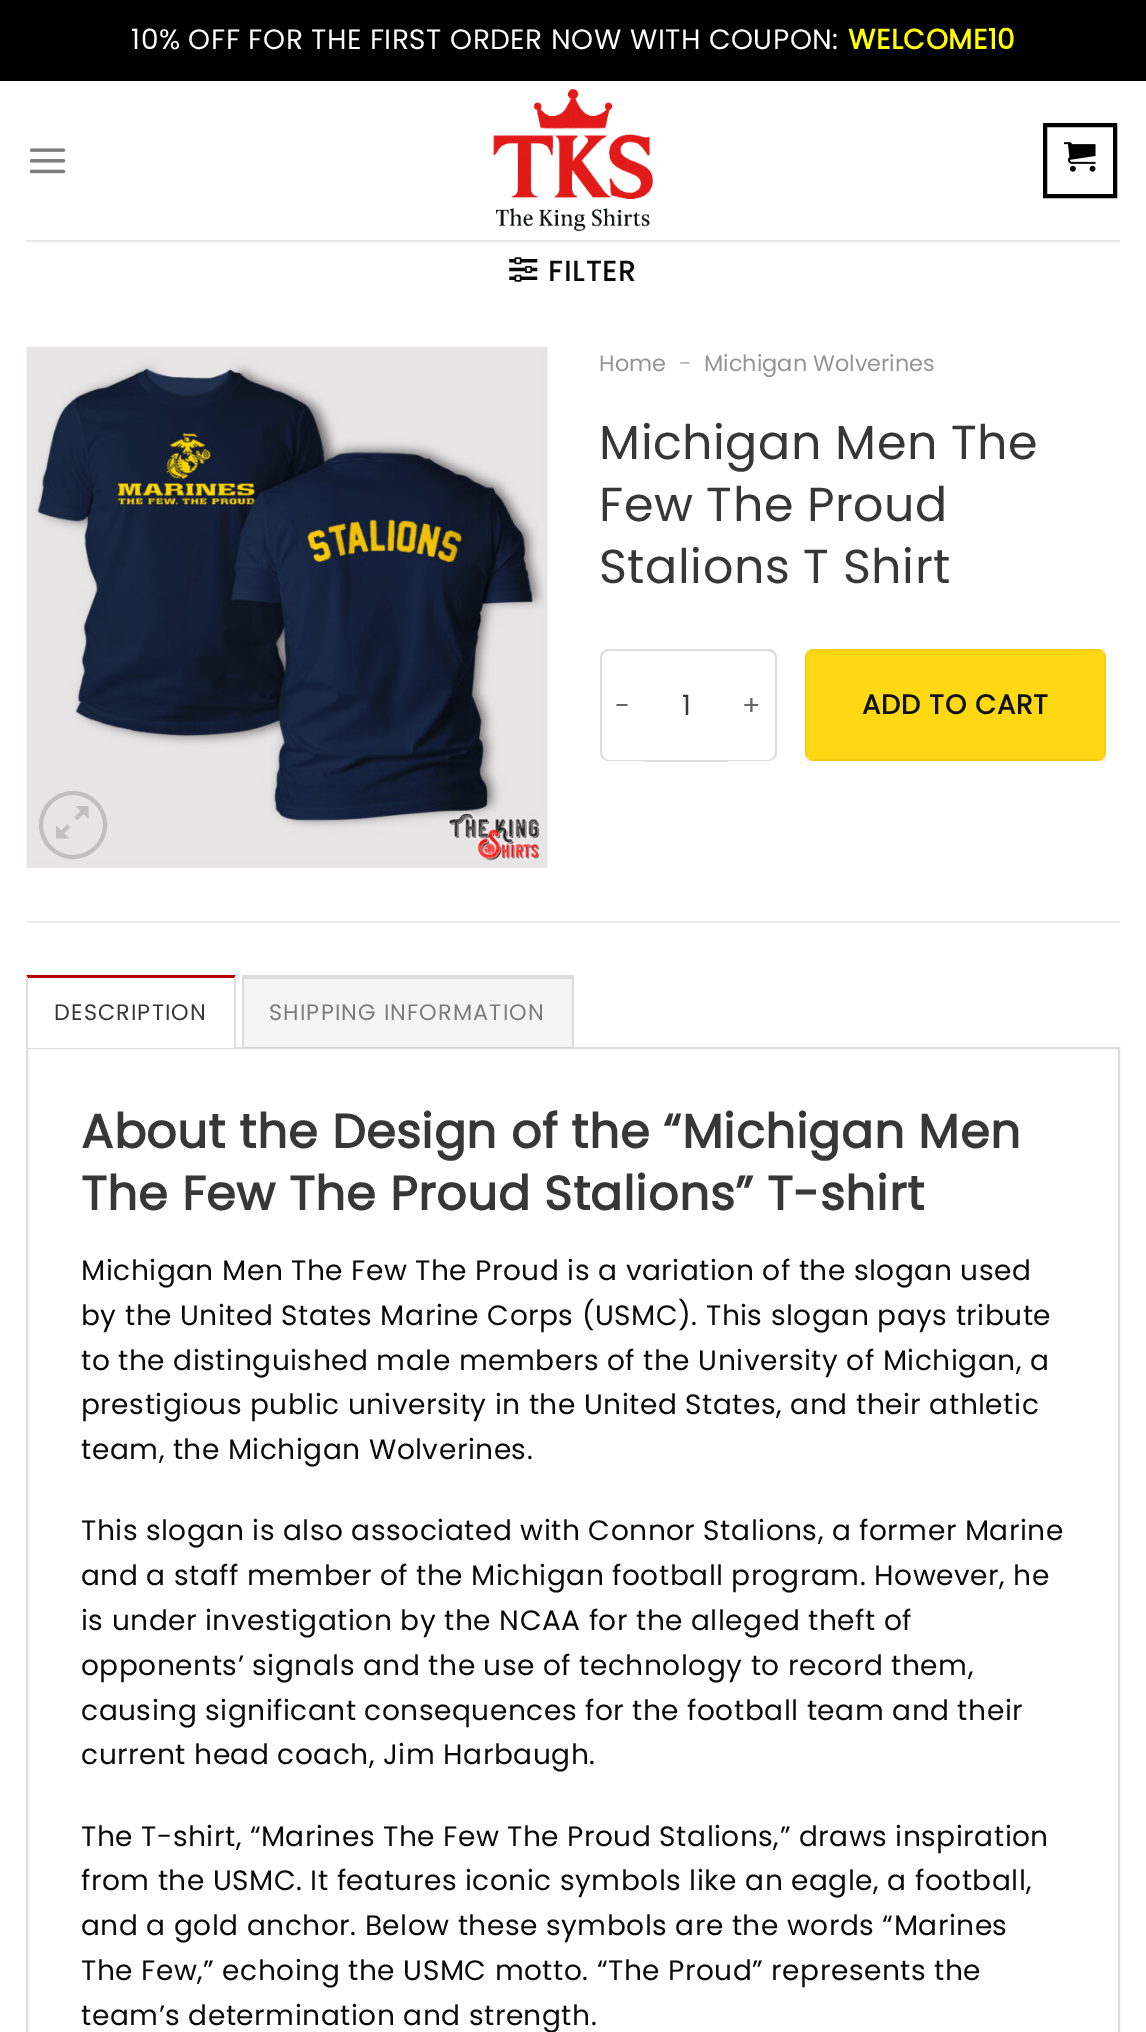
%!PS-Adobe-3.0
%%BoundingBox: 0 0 1146 2032
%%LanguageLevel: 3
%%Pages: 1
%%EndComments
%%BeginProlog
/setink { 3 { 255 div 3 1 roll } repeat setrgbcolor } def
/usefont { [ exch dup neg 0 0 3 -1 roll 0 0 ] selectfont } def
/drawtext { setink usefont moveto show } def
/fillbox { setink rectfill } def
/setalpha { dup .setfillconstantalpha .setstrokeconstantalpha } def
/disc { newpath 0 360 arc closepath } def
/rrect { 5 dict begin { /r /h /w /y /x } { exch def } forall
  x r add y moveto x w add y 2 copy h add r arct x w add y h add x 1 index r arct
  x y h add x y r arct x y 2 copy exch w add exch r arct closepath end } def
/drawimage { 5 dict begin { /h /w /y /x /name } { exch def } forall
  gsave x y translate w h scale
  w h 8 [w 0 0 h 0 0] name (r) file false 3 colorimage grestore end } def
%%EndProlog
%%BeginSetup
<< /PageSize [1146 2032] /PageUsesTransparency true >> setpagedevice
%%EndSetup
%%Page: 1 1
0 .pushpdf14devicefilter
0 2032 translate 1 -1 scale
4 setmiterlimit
0 0 1146 2032 255 255 255 fillbox
0 0 1146 81 0 0 0 fillbox
/Poppins-Regular 28 usefont
255 255 255 setink
131 49 moveto 0.55 0 (10% OFF FOR THE FIRST ORDER NOW WITH COUPON:) ashow
/Poppins-Bold 28 usefont
255 255 0 setink
848 49 moveto 0.55 0 (WELCOME10) ashow
(assets/img1.rgb) 29 148 37 26 drawimage
(assets/img2.rgb) 493 89 160 142 drawimage
0 0 0 setink
4 setlinewidth
1045 125 70 71 rectstroke
(assets/img3.rgb) 1064 142 32 30 drawimage
26 240 1094 2 231 231 231 fillbox
(assets/img4.rgb) 509 257 29 25 drawimage
10 10 10 setink
548 281 moveto 1.5 0 (FILTER) ashow
(assets/img5.rgb) 26 346 522 522 drawimage
192 192 192 setink
73 825 32 disc stroke
(assets/img6.rgb) 56 806 33 33 drawimage
(Home) 599 371 /Poppins-Regular 22.4 148 148 148 drawtext
(-) 679 371 /Poppins-Regular 22.4 178 178 178 drawtext
(Michigan Wolverines) 704 371 /Poppins-Regular 22.4 148 148 148 drawtext
/Poppins-Regular 47.6 usefont
55 55 55 setink
599 459 moveto 0.55 0 (Michigan Men The) ashow
599 521 moveto 0.55 0 (Few The Proud) ashow
599 583 moveto 0.55 0 (Stalions T Shirt) ashow
221 221 221 setink
609 649 moveto 644 649 lineto 644 761 lineto 609 761 lineto 604 761 600 757 600 752 curveto 600 658 lineto 600 653 604 649 609 649 curveto closepath 609 651 moveto 644 651 lineto 644 760 lineto 609 760 lineto 605 760 602 756 602 752 curveto 602 658 lineto 602 654 605 651 609 651 curveto closepath eofill
/Poppins-Regular 27.25 usefont
102 102 102 setink
615 715 moveto 0.75 0 (-) ashow
644 649 84 2 221 221 221 fillbox
644 760 84 2 221 221 221 fillbox
(1) 682 715 /Poppins-Regular 28 55 55 55 drawtext
221 221 221 setink
728 649 moveto 768 649 lineto 773 649 777 653 777 658 curveto 777 752 lineto 777 757 773 761 768 761 curveto 728 761 lineto closepath 728 651 moveto 768 651 lineto 772 651 775 654 775 658 curveto 775 752 lineto 775 756 772 760 768 760 curveto 728 760 lineto closepath eofill
/Poppins-Regular 27.25 usefont
102 102 102 setink
742 715 moveto 0.75 0 (+) ashow
255 216 20 setink
805 649 301 112 9 rrect fill
0.05 setalpha
0 0 0 setink
2 setlinewidth
806 650 299 110 rectstroke
/Poppins-Bold 27.25 usefont
1 setalpha
15 17 17 setink
862 714 moveto 0.75 0 (ADD TO CART) ashow
26 921 1094 2 236 236 236 fillbox
221 221 221 setink
27 1048 1092 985 rectstroke
26 1047 210 1 255 255 255 fillbox
178 0 0 setink
26 975 moveto 236 975 lineto 234 978 lineto 28 978 lineto closepath fill
221 221 221 setink
236 975 moveto 236 1048 lineto 234 1048 lineto 234 978 lineto closepath fill
26 1048 moveto 26 975 lineto 28 978 lineto 28 1048 lineto closepath fill
/Poppins-Regular 22.4 usefont
55 55 55 setink
54 1020 moveto 1.1 0 (DESCRIPTION) ashow
0.04 setalpha
244 979 328 69 0 0 0 fillbox
1 setalpha
242 975 332 4 221 221 221 fillbox
572 975 2 73 221 221 221 fillbox
242 975 2 73 221 221 221 fillbox
123 123 123 setink
269 1020 moveto 1.1 0 (SHIPPING INFORMATION) ashow
/Poppins-Bold 47.6 usefont
55 55 55 setink
81 1148 moveto 0.55 0 (About the Design of the “Michigan Men) ashow
81 1210 moveto 0.55 0 (The Few The Proud Stalions” T-shirt) ashow
/Poppins-Regular 28 usefont
10 10 10 setink
81 1280 moveto 0.55 0 (Michigan Men The Few The Proud is a variation of the slogan used) ashow
81 1325 moveto 0.55 0 (by the United States Marine Corps \(USMC\). This slogan pays tribute) ashow
81 1370 moveto 0.55 0 (to the distinguished male members of the University of Michigan, a) ashow
81 1414 moveto 0.55 0 (prestigious public university in the United States, and their athletic) ashow
81 1459 moveto 0.55 0 (team, the Michigan Wolverines.) ashow
81 1540 moveto 0.55 0 (This slogan is also associated with Connor Stalions, a former Marine) ashow
81 1585 moveto 0.55 0 (and a staff member of the Michigan football program. However, he) ashow
81 1630 moveto 0.55 0 (is under investigation by the NCAA for the alleged theft of) ashow
81 1675 moveto 0.55 0 (opponents’ signals and the use of technology to record them,) ashow
81 1720 moveto 0.55 0 (causing significant consequences for the football team and their) ashow
81 1764 moveto 0.55 0 (current head coach, Jim Harbaugh.) ashow
81 1846 moveto 0.55 0 (The T-shirt, “Marines The Few The Proud Stalions,” draws inspiration) ashow
81 1890 moveto 0.55 0 (from the USMC. It features iconic symbols like an eagle, a football,) ashow
81 1935 moveto 0.55 0 (and a gold anchor. Below these symbols are the words “Marines) ashow
81 1980 moveto 0.55 0 (The Few,” echoing the USMC motto. “The Proud” represents the) ashow
81 2025 moveto 0.55 0 (team’s determination and strength.) ashow
.poppdf14devicefilter showpage
%%EOF
